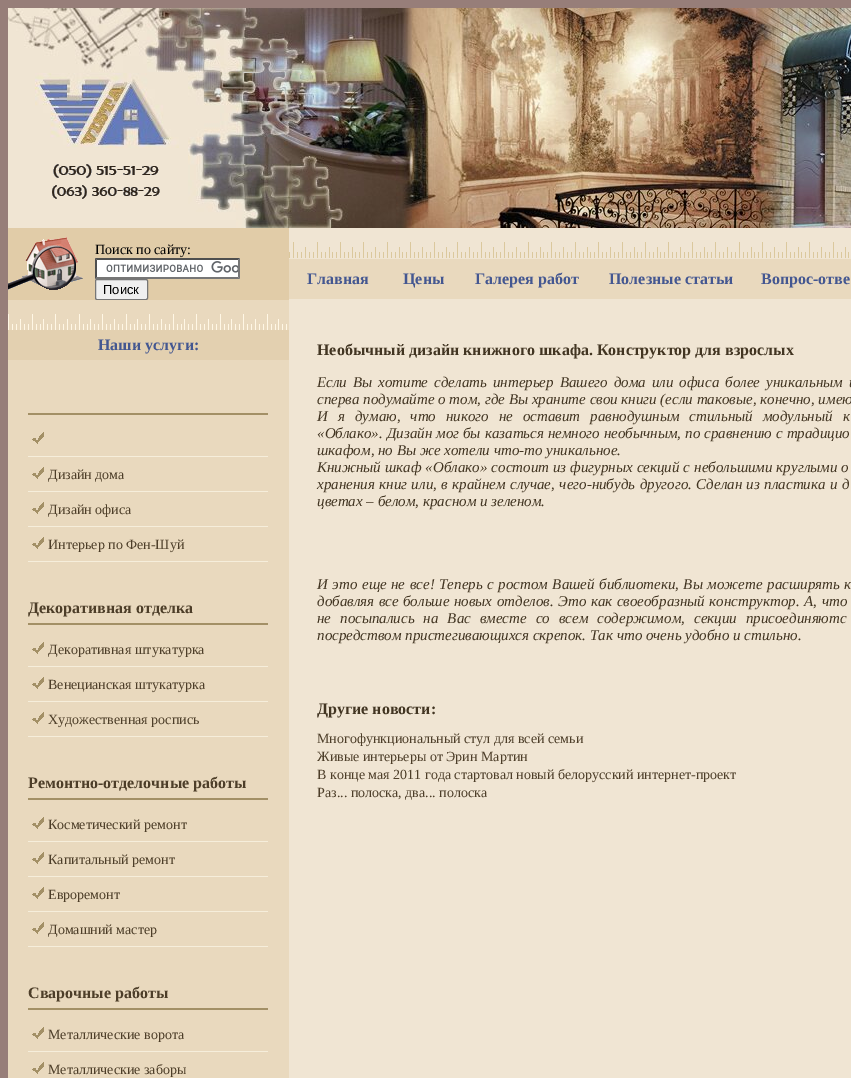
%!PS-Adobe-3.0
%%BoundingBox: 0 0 851 1078
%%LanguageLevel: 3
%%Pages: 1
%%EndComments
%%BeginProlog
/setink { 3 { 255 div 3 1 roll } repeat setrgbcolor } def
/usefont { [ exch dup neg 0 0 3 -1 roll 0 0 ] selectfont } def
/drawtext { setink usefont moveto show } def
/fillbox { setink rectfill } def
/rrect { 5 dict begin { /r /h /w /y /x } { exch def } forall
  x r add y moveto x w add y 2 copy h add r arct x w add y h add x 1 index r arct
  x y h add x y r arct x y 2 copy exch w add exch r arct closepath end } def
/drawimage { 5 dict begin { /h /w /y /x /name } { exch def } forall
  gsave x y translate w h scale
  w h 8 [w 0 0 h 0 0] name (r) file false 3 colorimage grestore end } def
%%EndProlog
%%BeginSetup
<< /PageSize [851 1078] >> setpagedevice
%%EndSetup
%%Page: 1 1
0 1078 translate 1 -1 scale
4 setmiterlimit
0 0 851 1078 151 126 121 fillbox
8 48 180 180 240 229 211 fillbox
(assets/img1.rgb) 8 8 27 40 drawimage
(assets/img2.rgb) 35 8 153 64 drawimage
(assets/img3.rgb) 188 8 663 65 drawimage
(assets/img4.rgb) 35 73 144 75 drawimage
(assets/img5.rgb) 188 73 663 75 drawimage
(assets/img6.rgb) 52 164 108 35 drawimage
(assets/img7.rgb) 188 148 663 80 drawimage
289 228 562 850 240 229 211 fillbox
8 228 87 72 225 204 168 fillbox
(assets/img8.rgb) 8 237 75 53 drawimage
95 228 194 72 225 204 168 fillbox
(Поиск по сайту:) 95 254 /LiberationSerif-Regular 14 0 0 0 drawtext
(assets/img9.rgb) 289 242 560 16 drawimage
289 259 562 40 233 217 190 fillbox
(Главная) 307 284 /LiberationSerif-Bold 16 68 87 145 drawtext
(Цены) 403 284 /LiberationSerif-Bold 16 68 87 145 drawtext
(Галерея работ) 475 284 /LiberationSerif-Bold 16 68 87 145 drawtext
(Полезные статьи) 609 284 /LiberationSerif-Bold 16 68 87 145 drawtext
(Вопрос-отве) 761 284 /LiberationSerif-Bold 16 68 87 145 drawtext
95 258 145 21 255 255 255 fillbox
(assets/img10.rgb) 106 261 132 12 drawimage
79 79 79 setink
95 258 moveto 240 258 lineto 238 260 lineto 97 260 lineto closepath fill
118 118 118 setink
240 258 moveto 240 279 lineto 238 277 lineto 238 260 lineto closepath fill
240 279 moveto 95 279 lineto 97 277 lineto 238 277 lineto closepath fill
79 79 79 setink
95 279 moveto 95 258 lineto 97 260 lineto 97 277 lineto closepath fill
239 239 239 setink
95.5 279.5 52 20 1.5 rrect gsave fill grestore
118 118 118 setink
stroke
(Поиск) 103 294 /LiberationSans-Regular 13 0 0 0 drawtext
8 300 281 30 233 217 190 fillbox
(assets/img11.rgb) 8 314 279 16 drawimage
8 360 281 718 233 217 190 fillbox
8 330 281 30 227 208 176 fillbox
(Наши услуги:) 98 350 /LiberationSerif-Bold 16 68 87 145 drawtext
28 413 240 2 163 144 102 fillbox
(assets/img12.rgb) 32 432 12 12 drawimage
28 456 240 1 246 238 219 fillbox
(assets/img12.rgb) 32 467 12 12 drawimage
(Дизайн дома) 48 479 /LiberationSerif-Regular 14 77 62 41 drawtext
28 491 240 1 246 238 219 fillbox
(assets/img12.rgb) 32 502 12 12 drawimage
(Дизайн офиса) 48 514 /LiberationSerif-Regular 14 77 62 41 drawtext
28 526 240 1 246 238 219 fillbox
(assets/img12.rgb) 32 537 12 12 drawimage
(Интерьер по Фен-Шуй) 48 549 /LiberationSerif-Regular 14 77 62 41 drawtext
28 561 240 1 246 238 219 fillbox
(Декоративная отделка) 28 613 /LiberationSerif-Bold 16 77 62 41 drawtext
28 623 240 2 163 144 102 fillbox
(assets/img12.rgb) 32 642 12 12 drawimage
(Декоративная штукатурка) 48 654 /LiberationSerif-Regular 14 77 62 41 drawtext
28 666 240 1 246 238 219 fillbox
(assets/img12.rgb) 32 677 12 12 drawimage
(Венецианская штукатурка) 48 689 /LiberationSerif-Regular 14 77 62 41 drawtext
28 701 240 1 246 238 219 fillbox
(assets/img12.rgb) 32 712 12 12 drawimage
(Художественная роспись) 48 724 /LiberationSerif-Regular 14 77 62 41 drawtext
28 736 240 1 246 238 219 fillbox
(Ремонтно-отделочные работы) 28 788 /LiberationSerif-Bold 16 77 62 41 drawtext
28 798 240 2 163 144 102 fillbox
(assets/img12.rgb) 32 817 12 12 drawimage
(Косметический ремонт) 48 829 /LiberationSerif-Regular 14 77 62 41 drawtext
28 841 240 1 246 238 219 fillbox
(assets/img12.rgb) 32 852 12 12 drawimage
(Капитальный ремонт) 48 864 /LiberationSerif-Regular 14 77 62 41 drawtext
28 876 240 1 246 238 219 fillbox
(assets/img12.rgb) 32 887 12 12 drawimage
(Евроремонт) 48 899 /LiberationSerif-Regular 14 77 62 41 drawtext
28 911 240 1 246 238 219 fillbox
(assets/img12.rgb) 32 922 12 12 drawimage
(Домашний мастер) 48 934 /LiberationSerif-Regular 14 77 62 41 drawtext
28 946 240 1 246 238 219 fillbox
(Сварочные работы) 28 998 /LiberationSerif-Bold 16 77 62 41 drawtext
28 1008 240 2 163 144 102 fillbox
(assets/img12.rgb) 32 1027 12 12 drawimage
(Металлические ворота) 48 1039 /LiberationSerif-Regular 14 77 62 41 drawtext
28 1051 240 1 246 238 219 fillbox
(assets/img12.rgb) 32 1062 12 12 drawimage
(Металлические заборы) 48 1074 /LiberationSerif-Regular 14 77 62 41 drawtext
(Необычный дизайн книжного шкафа. Конструктор для взрослых) 317 355 /LiberationSerif-Bold 16 66 53 34 drawtext
/LiberationSerif-Italic 15 usefont
317 387 moveto 2.25 0 32 (Если Вы хотите сделать интерьер Вашего дома или офиса более уникальным и) widthshow
(сперва подумайте о том, где Вы храните свои книги \(если таковые, конечно, имею) 317 404 /LiberationSerif-Italic 15 66 53 34 drawtext
317 421 moveto 6.25 0 32 (И я думаю, что никого не оставит равнодушным стильный модульный к) widthshow
317 438 moveto 0.25 0 32 («Облако». Дизайн мог бы казаться немного необычным, по сравнению с традицио) widthshow
(шкафом, но Вы же хотели что-то уникальное.) 317 455 /LiberationSerif-Italic 15 66 53 34 drawtext
317 472 moveto 0.25 0 32 (Книжный шкаф «Облако» состоит из фигурных секций с небольшими круглыми о) widthshow
317 489 moveto 0.75 0 32 (хранения книг или, в крайнем случае, чего-нибудь другого. Сделан из пластика и д) widthshow
(цветах – белом, красном и зеленом.) 317 506 /LiberationSerif-Italic 15 66 53 34 drawtext
317 589 moveto 0.8 0 32 (И это еще не все! Теперь с ростом Вашей библиотеки, Вы можете расширять к) widthshow
317 606 moveto 0.75 0 32 (добавляя все больше новых отделов. Это как своеобразный конструктор. А, что) widthshow
317 623 moveto 5.25 0 32 (не посыпались на Вас вместе со всем содержимом, секции присоединяютс) widthshow
(посредством пристегивающихся скрепок. Так что очень удобно и стильно.) 317 640 /LiberationSerif-Italic 15 66 53 34 drawtext
(Другие новости:) 317 714 /LiberationSerif-Bold 16 66 53 34 drawtext
(Многофункциональный стул для всей семьи) 317 743 /LiberationSerif-Regular 14 77 62 41 drawtext
(Живые интерьеры от Эрин Мартин) 317 761 /LiberationSerif-Regular 14 77 62 41 drawtext
(В конце мая 2011 года стартовал новый белорусский интернет-проект) 317 779 /LiberationSerif-Regular 14 77 62 41 drawtext
(Раз... полоска, два... полоска) 317 797 /LiberationSerif-Regular 14 77 62 41 drawtext
showpage
%%EOF
